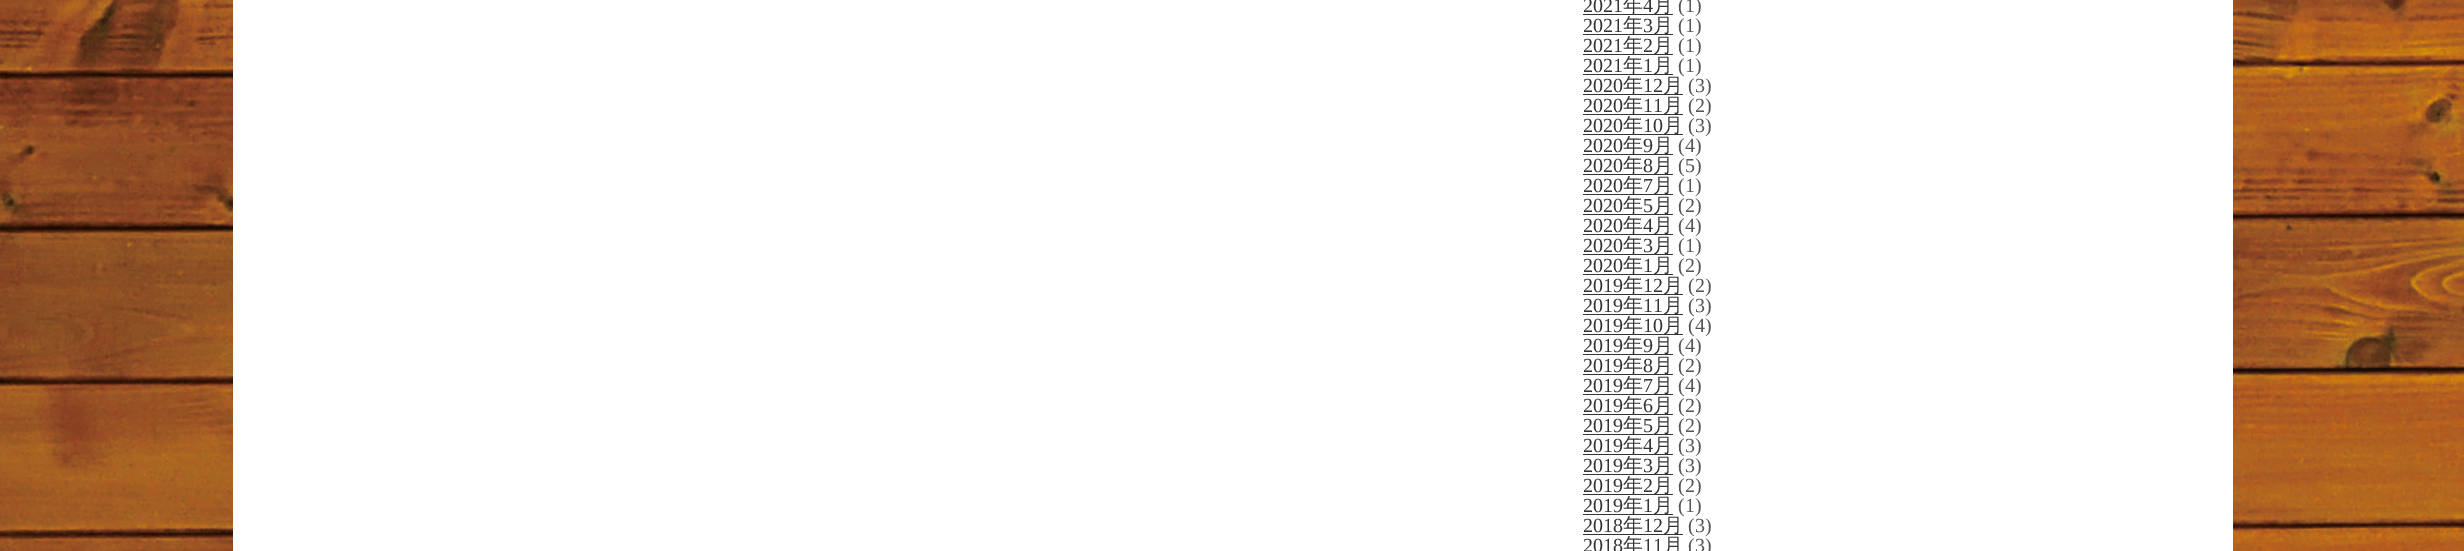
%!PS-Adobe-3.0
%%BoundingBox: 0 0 2464 551
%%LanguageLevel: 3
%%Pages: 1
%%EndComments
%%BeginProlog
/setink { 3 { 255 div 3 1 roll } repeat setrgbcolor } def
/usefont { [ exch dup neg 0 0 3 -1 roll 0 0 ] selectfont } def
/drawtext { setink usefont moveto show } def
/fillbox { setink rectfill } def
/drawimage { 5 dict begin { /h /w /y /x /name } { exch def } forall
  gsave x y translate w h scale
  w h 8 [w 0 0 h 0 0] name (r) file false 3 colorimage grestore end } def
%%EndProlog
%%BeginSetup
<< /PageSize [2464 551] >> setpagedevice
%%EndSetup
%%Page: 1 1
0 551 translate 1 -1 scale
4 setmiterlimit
0 0 2464 551 255 255 255 fillbox
(assets/img1.rgb) 0 0 2464 551 drawimage
233 0 2000 551 255 255 255 fillbox
(2021) 1583 12 /LiberationSerif-Regular 20 51 51 51 drawtext
1583 14 90 1 51 51 51 fillbox
(年) 1623 12 /WenQuanYiZenHei-Medium 20 51 51 51 drawtext
(4) 1643 12 /LiberationSerif-Regular 20 51 51 51 drawtext
(月) 1653 12 /WenQuanYiZenHei-Medium 20 51 51 51 drawtext
(\(1\)) 1678 12 /LiberationSerif-Regular 20 85 85 85 drawtext
(2021) 1583 32 /LiberationSerif-Regular 20 51 51 51 drawtext
1583 34 90 1 51 51 51 fillbox
(年) 1623 32 /WenQuanYiZenHei-Medium 20 51 51 51 drawtext
(3) 1643 32 /LiberationSerif-Regular 20 51 51 51 drawtext
(月) 1653 32 /WenQuanYiZenHei-Medium 20 51 51 51 drawtext
(\(1\)) 1678 32 /LiberationSerif-Regular 20 85 85 85 drawtext
(2021) 1583 52 /LiberationSerif-Regular 20 51 51 51 drawtext
1583 54 90 1 51 51 51 fillbox
(年) 1623 52 /WenQuanYiZenHei-Medium 20 51 51 51 drawtext
(2) 1643 52 /LiberationSerif-Regular 20 51 51 51 drawtext
(月) 1653 52 /WenQuanYiZenHei-Medium 20 51 51 51 drawtext
(\(1\)) 1678 52 /LiberationSerif-Regular 20 85 85 85 drawtext
(2021) 1583 72 /LiberationSerif-Regular 20 51 51 51 drawtext
1583 74 90 1 51 51 51 fillbox
(年) 1623 72 /WenQuanYiZenHei-Medium 20 51 51 51 drawtext
(1) 1643 72 /LiberationSerif-Regular 20 51 51 51 drawtext
(月) 1653 72 /WenQuanYiZenHei-Medium 20 51 51 51 drawtext
(\(1\)) 1678 72 /LiberationSerif-Regular 20 85 85 85 drawtext
(2020) 1583 92 /LiberationSerif-Regular 20 51 51 51 drawtext
1583 94 100 1 51 51 51 fillbox
(年) 1623 92 /WenQuanYiZenHei-Medium 20 51 51 51 drawtext
(12) 1643 92 /LiberationSerif-Regular 20 51 51 51 drawtext
(月) 1663 92 /WenQuanYiZenHei-Medium 20 51 51 51 drawtext
(\(3\)) 1688 92 /LiberationSerif-Regular 20 85 85 85 drawtext
(2020) 1583 112 /LiberationSerif-Regular 20 51 51 51 drawtext
1583 114 100 1 51 51 51 fillbox
(年) 1623 112 /WenQuanYiZenHei-Medium 20 51 51 51 drawtext
(11) 1643 112 /LiberationSerif-Regular 20 51 51 51 drawtext
(月) 1663 112 /WenQuanYiZenHei-Medium 20 51 51 51 drawtext
(\(2\)) 1688 112 /LiberationSerif-Regular 20 85 85 85 drawtext
(2020) 1583 132 /LiberationSerif-Regular 20 51 51 51 drawtext
1583 134 100 1 51 51 51 fillbox
(年) 1623 132 /WenQuanYiZenHei-Medium 20 51 51 51 drawtext
(10) 1643 132 /LiberationSerif-Regular 20 51 51 51 drawtext
(月) 1663 132 /WenQuanYiZenHei-Medium 20 51 51 51 drawtext
(\(3\)) 1688 132 /LiberationSerif-Regular 20 85 85 85 drawtext
(2020) 1583 152 /LiberationSerif-Regular 20 51 51 51 drawtext
1583 154 90 1 51 51 51 fillbox
(年) 1623 152 /WenQuanYiZenHei-Medium 20 51 51 51 drawtext
(9) 1643 152 /LiberationSerif-Regular 20 51 51 51 drawtext
(月) 1653 152 /WenQuanYiZenHei-Medium 20 51 51 51 drawtext
(\(4\)) 1678 152 /LiberationSerif-Regular 20 85 85 85 drawtext
(2020) 1583 172 /LiberationSerif-Regular 20 51 51 51 drawtext
1583 174 90 1 51 51 51 fillbox
(年) 1623 172 /WenQuanYiZenHei-Medium 20 51 51 51 drawtext
(8) 1643 172 /LiberationSerif-Regular 20 51 51 51 drawtext
(月) 1653 172 /WenQuanYiZenHei-Medium 20 51 51 51 drawtext
(\(5\)) 1678 172 /LiberationSerif-Regular 20 85 85 85 drawtext
(2020) 1583 192 /LiberationSerif-Regular 20 51 51 51 drawtext
1583 194 90 1 51 51 51 fillbox
(年) 1623 192 /WenQuanYiZenHei-Medium 20 51 51 51 drawtext
(7) 1643 192 /LiberationSerif-Regular 20 51 51 51 drawtext
(月) 1653 192 /WenQuanYiZenHei-Medium 20 51 51 51 drawtext
(\(1\)) 1678 192 /LiberationSerif-Regular 20 85 85 85 drawtext
(2020) 1583 212 /LiberationSerif-Regular 20 51 51 51 drawtext
1583 214 90 1 51 51 51 fillbox
(年) 1623 212 /WenQuanYiZenHei-Medium 20 51 51 51 drawtext
(5) 1643 212 /LiberationSerif-Regular 20 51 51 51 drawtext
(月) 1653 212 /WenQuanYiZenHei-Medium 20 51 51 51 drawtext
(\(2\)) 1678 212 /LiberationSerif-Regular 20 85 85 85 drawtext
(2020) 1583 232 /LiberationSerif-Regular 20 51 51 51 drawtext
1583 234 90 1 51 51 51 fillbox
(年) 1623 232 /WenQuanYiZenHei-Medium 20 51 51 51 drawtext
(4) 1643 232 /LiberationSerif-Regular 20 51 51 51 drawtext
(月) 1653 232 /WenQuanYiZenHei-Medium 20 51 51 51 drawtext
(\(4\)) 1678 232 /LiberationSerif-Regular 20 85 85 85 drawtext
(2020) 1583 252 /LiberationSerif-Regular 20 51 51 51 drawtext
1583 254 90 1 51 51 51 fillbox
(年) 1623 252 /WenQuanYiZenHei-Medium 20 51 51 51 drawtext
(3) 1643 252 /LiberationSerif-Regular 20 51 51 51 drawtext
(月) 1653 252 /WenQuanYiZenHei-Medium 20 51 51 51 drawtext
(\(1\)) 1678 252 /LiberationSerif-Regular 20 85 85 85 drawtext
(2020) 1583 272 /LiberationSerif-Regular 20 51 51 51 drawtext
1583 274 90 1 51 51 51 fillbox
(年) 1623 272 /WenQuanYiZenHei-Medium 20 51 51 51 drawtext
(1) 1643 272 /LiberationSerif-Regular 20 51 51 51 drawtext
(月) 1653 272 /WenQuanYiZenHei-Medium 20 51 51 51 drawtext
(\(2\)) 1678 272 /LiberationSerif-Regular 20 85 85 85 drawtext
(2019) 1583 292 /LiberationSerif-Regular 20 51 51 51 drawtext
1583 294 100 1 51 51 51 fillbox
(年) 1623 292 /WenQuanYiZenHei-Medium 20 51 51 51 drawtext
(12) 1643 292 /LiberationSerif-Regular 20 51 51 51 drawtext
(月) 1663 292 /WenQuanYiZenHei-Medium 20 51 51 51 drawtext
(\(2\)) 1688 292 /LiberationSerif-Regular 20 85 85 85 drawtext
(2019) 1583 312 /LiberationSerif-Regular 20 51 51 51 drawtext
1583 314 100 1 51 51 51 fillbox
(年) 1623 312 /WenQuanYiZenHei-Medium 20 51 51 51 drawtext
(11) 1643 312 /LiberationSerif-Regular 20 51 51 51 drawtext
(月) 1663 312 /WenQuanYiZenHei-Medium 20 51 51 51 drawtext
(\(3\)) 1688 312 /LiberationSerif-Regular 20 85 85 85 drawtext
(2019) 1583 332 /LiberationSerif-Regular 20 51 51 51 drawtext
1583 334 100 1 51 51 51 fillbox
(年) 1623 332 /WenQuanYiZenHei-Medium 20 51 51 51 drawtext
(10) 1643 332 /LiberationSerif-Regular 20 51 51 51 drawtext
(月) 1663 332 /WenQuanYiZenHei-Medium 20 51 51 51 drawtext
(\(4\)) 1688 332 /LiberationSerif-Regular 20 85 85 85 drawtext
(2019) 1583 352 /LiberationSerif-Regular 20 51 51 51 drawtext
1583 354 90 1 51 51 51 fillbox
(年) 1623 352 /WenQuanYiZenHei-Medium 20 51 51 51 drawtext
(9) 1643 352 /LiberationSerif-Regular 20 51 51 51 drawtext
(月) 1653 352 /WenQuanYiZenHei-Medium 20 51 51 51 drawtext
(\(4\)) 1678 352 /LiberationSerif-Regular 20 85 85 85 drawtext
(2019) 1583 372 /LiberationSerif-Regular 20 51 51 51 drawtext
1583 374 90 1 51 51 51 fillbox
(年) 1623 372 /WenQuanYiZenHei-Medium 20 51 51 51 drawtext
(8) 1643 372 /LiberationSerif-Regular 20 51 51 51 drawtext
(月) 1653 372 /WenQuanYiZenHei-Medium 20 51 51 51 drawtext
(\(2\)) 1678 372 /LiberationSerif-Regular 20 85 85 85 drawtext
(2019) 1583 392 /LiberationSerif-Regular 20 51 51 51 drawtext
1583 394 90 1 51 51 51 fillbox
(年) 1623 392 /WenQuanYiZenHei-Medium 20 51 51 51 drawtext
(7) 1643 392 /LiberationSerif-Regular 20 51 51 51 drawtext
(月) 1653 392 /WenQuanYiZenHei-Medium 20 51 51 51 drawtext
(\(4\)) 1678 392 /LiberationSerif-Regular 20 85 85 85 drawtext
(2019) 1583 412 /LiberationSerif-Regular 20 51 51 51 drawtext
1583 414 90 1 51 51 51 fillbox
(年) 1623 412 /WenQuanYiZenHei-Medium 20 51 51 51 drawtext
(6) 1643 412 /LiberationSerif-Regular 20 51 51 51 drawtext
(月) 1653 412 /WenQuanYiZenHei-Medium 20 51 51 51 drawtext
(\(2\)) 1678 412 /LiberationSerif-Regular 20 85 85 85 drawtext
(2019) 1583 432 /LiberationSerif-Regular 20 51 51 51 drawtext
1583 434 90 1 51 51 51 fillbox
(年) 1623 432 /WenQuanYiZenHei-Medium 20 51 51 51 drawtext
(5) 1643 432 /LiberationSerif-Regular 20 51 51 51 drawtext
(月) 1653 432 /WenQuanYiZenHei-Medium 20 51 51 51 drawtext
(\(2\)) 1678 432 /LiberationSerif-Regular 20 85 85 85 drawtext
(2019) 1583 452 /LiberationSerif-Regular 20 51 51 51 drawtext
1583 454 90 1 51 51 51 fillbox
(年) 1623 452 /WenQuanYiZenHei-Medium 20 51 51 51 drawtext
(4) 1643 452 /LiberationSerif-Regular 20 51 51 51 drawtext
(月) 1653 452 /WenQuanYiZenHei-Medium 20 51 51 51 drawtext
(\(3\)) 1678 452 /LiberationSerif-Regular 20 85 85 85 drawtext
(2019) 1583 472 /LiberationSerif-Regular 20 51 51 51 drawtext
1583 474 90 1 51 51 51 fillbox
(年) 1623 472 /WenQuanYiZenHei-Medium 20 51 51 51 drawtext
(3) 1643 472 /LiberationSerif-Regular 20 51 51 51 drawtext
(月) 1653 472 /WenQuanYiZenHei-Medium 20 51 51 51 drawtext
(\(3\)) 1678 472 /LiberationSerif-Regular 20 85 85 85 drawtext
(2019) 1583 492 /LiberationSerif-Regular 20 51 51 51 drawtext
1583 494 90 1 51 51 51 fillbox
(年) 1623 492 /WenQuanYiZenHei-Medium 20 51 51 51 drawtext
(2) 1643 492 /LiberationSerif-Regular 20 51 51 51 drawtext
(月) 1653 492 /WenQuanYiZenHei-Medium 20 51 51 51 drawtext
(\(2\)) 1678 492 /LiberationSerif-Regular 20 85 85 85 drawtext
(2019) 1583 512 /LiberationSerif-Regular 20 51 51 51 drawtext
1583 514 90 1 51 51 51 fillbox
(年) 1623 512 /WenQuanYiZenHei-Medium 20 51 51 51 drawtext
(1) 1643 512 /LiberationSerif-Regular 20 51 51 51 drawtext
(月) 1653 512 /WenQuanYiZenHei-Medium 20 51 51 51 drawtext
(\(1\)) 1678 512 /LiberationSerif-Regular 20 85 85 85 drawtext
(2018) 1583 532 /LiberationSerif-Regular 20 51 51 51 drawtext
1583 534 100 1 51 51 51 fillbox
(年) 1623 532 /WenQuanYiZenHei-Medium 20 51 51 51 drawtext
(12) 1643 532 /LiberationSerif-Regular 20 51 51 51 drawtext
(月) 1663 532 /WenQuanYiZenHei-Medium 20 51 51 51 drawtext
(\(3\)) 1688 532 /LiberationSerif-Regular 20 85 85 85 drawtext
(2018) 1583 552 /LiberationSerif-Regular 20 51 51 51 drawtext
(年) 1623 552 /WenQuanYiZenHei-Medium 20 51 51 51 drawtext
(11) 1643 552 /LiberationSerif-Regular 20 51 51 51 drawtext
(月) 1663 552 /WenQuanYiZenHei-Medium 20 51 51 51 drawtext
(\(3\)) 1688 552 /LiberationSerif-Regular 20 85 85 85 drawtext
showpage
%%EOF
